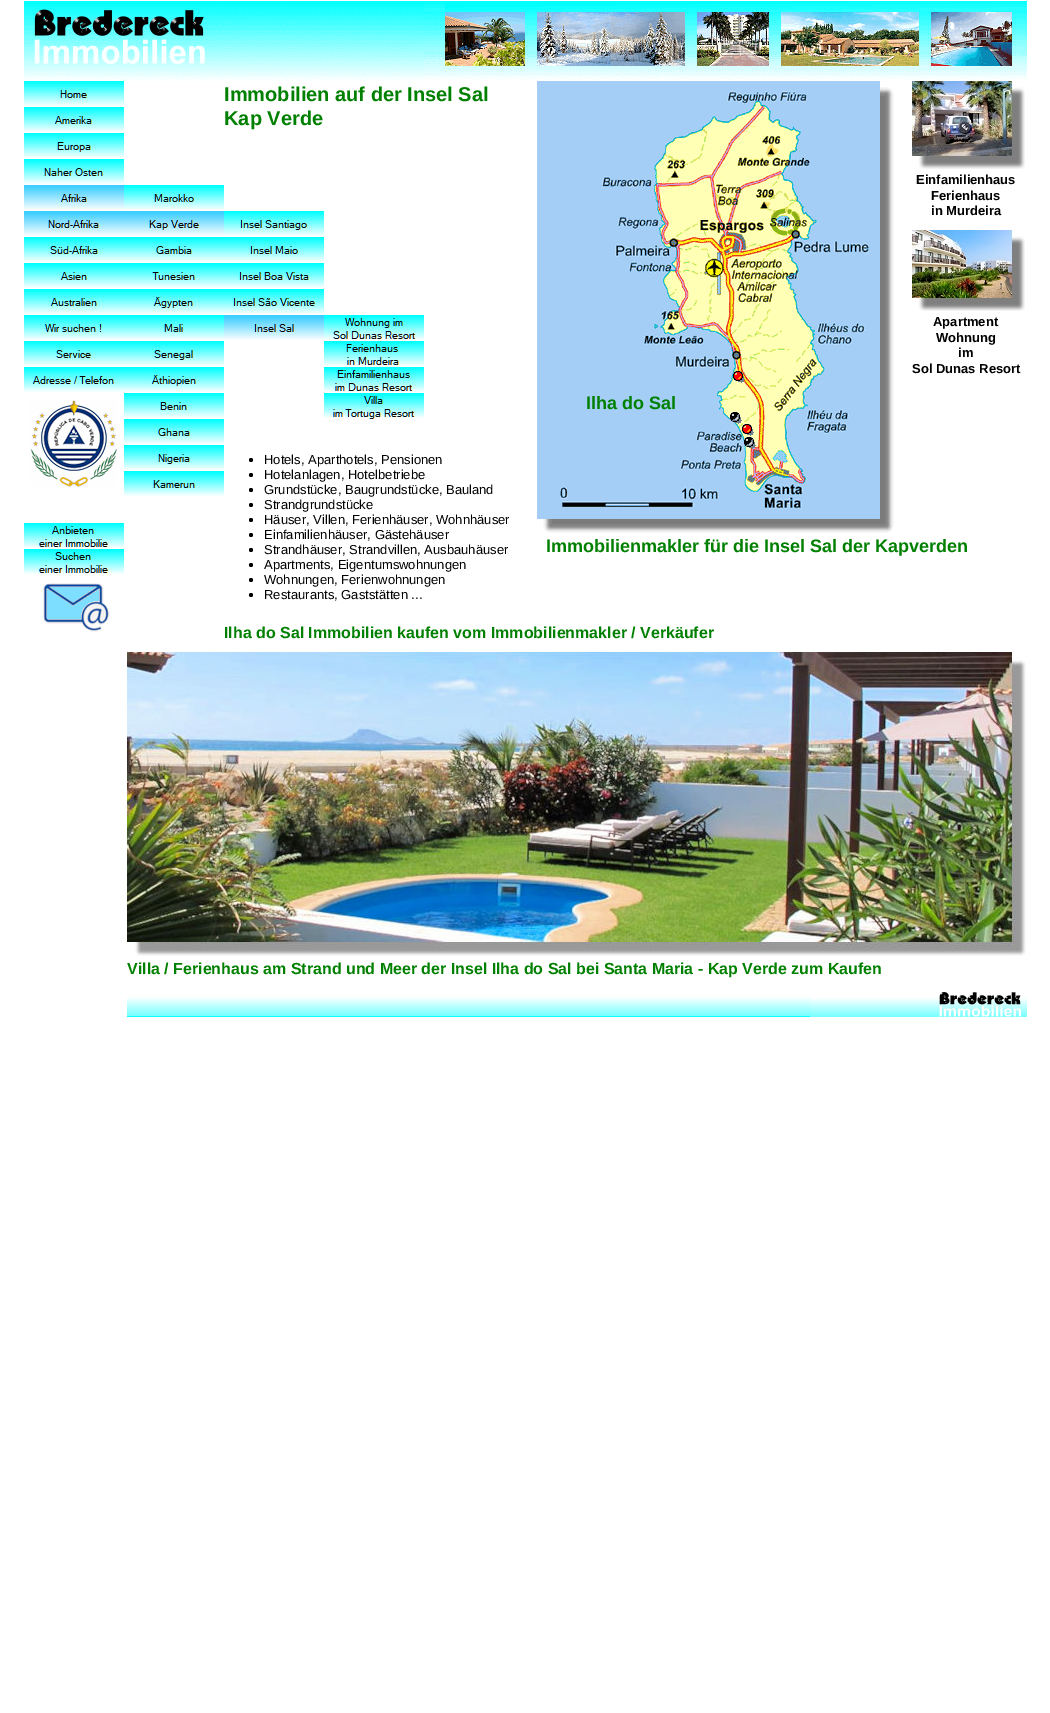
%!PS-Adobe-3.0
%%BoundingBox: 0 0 1050 1713
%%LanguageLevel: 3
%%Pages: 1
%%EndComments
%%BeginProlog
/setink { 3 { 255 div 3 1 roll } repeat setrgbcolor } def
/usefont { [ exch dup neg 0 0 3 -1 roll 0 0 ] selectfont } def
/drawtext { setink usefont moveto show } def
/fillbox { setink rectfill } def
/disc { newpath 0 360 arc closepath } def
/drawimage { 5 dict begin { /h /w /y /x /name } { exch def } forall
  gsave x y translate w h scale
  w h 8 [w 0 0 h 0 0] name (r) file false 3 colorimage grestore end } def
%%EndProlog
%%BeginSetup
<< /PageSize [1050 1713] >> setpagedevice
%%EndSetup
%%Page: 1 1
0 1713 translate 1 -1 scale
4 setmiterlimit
0 0 1050 1713 255 255 255 fillbox
(assets/img1.rgb) 24 1 400 80 drawimage
(assets/img2.rgb) 424 1 603 79 drawimage
(assets/img3.rgb) 24 81 100 25 drawimage
(assets/img4.rgb) 24 107 100 25 drawimage
(assets/img5.rgb) 24 133 100 25 drawimage
(assets/img6.rgb) 24 159 100 25 drawimage
(assets/img7.rgb) 24 185 100 25 drawimage
(assets/img8.rgb) 24 211 100 25 drawimage
(assets/img9.rgb) 24 237 100 25 drawimage
(assets/img10.rgb) 24 263 100 25 drawimage
(assets/img11.rgb) 24 289 100 25 drawimage
(assets/img12.rgb) 24 315 100 25 drawimage
(assets/img13.rgb) 24 341 100 25 drawimage
(assets/img14.rgb) 24 367 100 25 drawimage
(Immobilien auf der Insel Sal) 224 101 /LiberationSans-Bold 20 0 128 0 drawtext
(Kap Verde) 224 125 /LiberationSans-Bold 20 0 128 0 drawtext
(assets/img15.rgb) 537 81 357 452 drawimage
(assets/img16.rgb) 912 81 113 88 drawimage
(assets/img17.rgb) 124 185 100 25 drawimage
(assets/img18.rgb) 124 211 100 25 drawimage
(assets/img19.rgb) 124 237 100 25 drawimage
(assets/img20.rgb) 124 263 100 25 drawimage
(assets/img21.rgb) 124 289 100 25 drawimage
(assets/img22.rgb) 124 315 100 25 drawimage
(assets/img23.rgb) 124 341 100 25 drawimage
(assets/img24.rgb) 124 367 100 25 drawimage
(assets/img25.rgb) 124 393 100 25 drawimage
(assets/img26.rgb) 124 419 100 25 drawimage
(assets/img27.rgb) 124 445 100 25 drawimage
(assets/img28.rgb) 124 471 100 25 drawimage
(assets/img29.rgb) 224 211 100 25 drawimage
(assets/img30.rgb) 224 237 100 25 drawimage
(assets/img31.rgb) 224 263 100 25 drawimage
(assets/img32.rgb) 224 289 100 25 drawimage
(assets/img33.rgb) 224 315 100 25 drawimage
(Einfamilienhaus) 916 184 /LiberationSans-Bold 13 0 0 0 drawtext
(Ferienhaus) 931 200 /LiberationSans-Bold 13 0 0 0 drawtext
(in Murdeira) 931 215 /LiberationSans-Bold 13 0 0 0 drawtext
(assets/img34.rgb) 912 230 113 81 drawimage
(assets/img35.rgb) 324 315 100 25 drawimage
(assets/img36.rgb) 324 341 100 25 drawimage
(assets/img37.rgb) 324 367 100 25 drawimage
(assets/img38.rgb) 324 393 100 26 drawimage
(Apartment) 933 326 /LiberationSans-Bold 13 0 0 0 drawtext
(Wohnung) 936 342 /LiberationSans-Bold 13 0 0 0 drawtext
(im) 958 357 /LiberationSans-Bold 13 0 0 0 drawtext
(Sol Dunas Resort) 912 373 /LiberationSans-Bold 13 0 0 0 drawtext
(assets/img39.rgb) 733 371 12 12 drawimage
(assets/img40.rgb) 30 400 87 87 drawimage
(Ilha do Sal) 586 409 /LiberationSans-Bold 18 0 128 0 drawtext
(assets/img41.rgb) 730 412 12 12 drawimage
(assets/img42.rgb) 742 424 12 12 drawimage
(assets/img43.rgb) 744 437 12 12 drawimage
(assets/img44.rgb) 24 523 100 25 drawimage
(assets/img45.rgb) 24 549 100 25 drawimage
0 0 0 setink
251 460 2 disc fill
(Hotels, Aparthotels, Pensionen) 264 464 /LiberationSans-Regular 13 0 0 0 drawtext
251 475 2 disc fill
(Hotelanlagen, Hotelbetriebe) 264 479 /LiberationSans-Regular 13 0 0 0 drawtext
251 490 2 disc fill
(Grundstücke, Baugrundstücke, Bauland) 264 494 /LiberationSans-Regular 13 0 0 0 drawtext
251 505 2 disc fill
(Strandgrundstücke) 264 509 /LiberationSans-Regular 13 0 0 0 drawtext
251 520 2 disc fill
(Häuser, Villen, Ferienhäuser, Wohnhäuser) 264 524 /LiberationSans-Regular 13 0 0 0 drawtext
251 535 2 disc fill
(Einfamilienhäuser, Gästehäuser) 264 539 /LiberationSans-Regular 13 0 0 0 drawtext
251 550 2 disc fill
(Strandhäuser, Strandvillen, Ausbauhäuser) 264 554 /LiberationSans-Regular 13 0 0 0 drawtext
251 565 2 disc fill
(Apartments, Eigentumswohnungen) 264 569 /LiberationSans-Regular 13 0 0 0 drawtext
251 580 2 disc fill
(Wohnungen, Ferienwohnungen) 264 584 /LiberationSans-Regular 13 0 0 0 drawtext
251 595 2 disc fill
(Restaurants, Gaststätten ...) 264 599 /LiberationSans-Regular 13 0 0 0 drawtext
(Immobilienmakler für die Insel Sal der Kapverden) 546 552 /LiberationSans-Bold 18 0 128 0 drawtext
(assets/img46.rgb) 43 583 67 49 drawimage
(Ilha do Sal Immobilien kaufen vom Immobilienmakler / Verkäufer) 224 638 /LiberationSans-Bold 16 0 128 0 drawtext
(assets/img47.rgb) 127 652 899 304 drawimage
(Villa / Ferienhaus am Strand und Meer der Insel Ilha do Sal bei Santa Maria - Kap Verde zum Kaufen) 127 974 /LiberationSans-Bold 16 0 128 0 drawtext
(assets/img48.rgb) 127 992 900 25 drawimage
showpage
%%EOF
